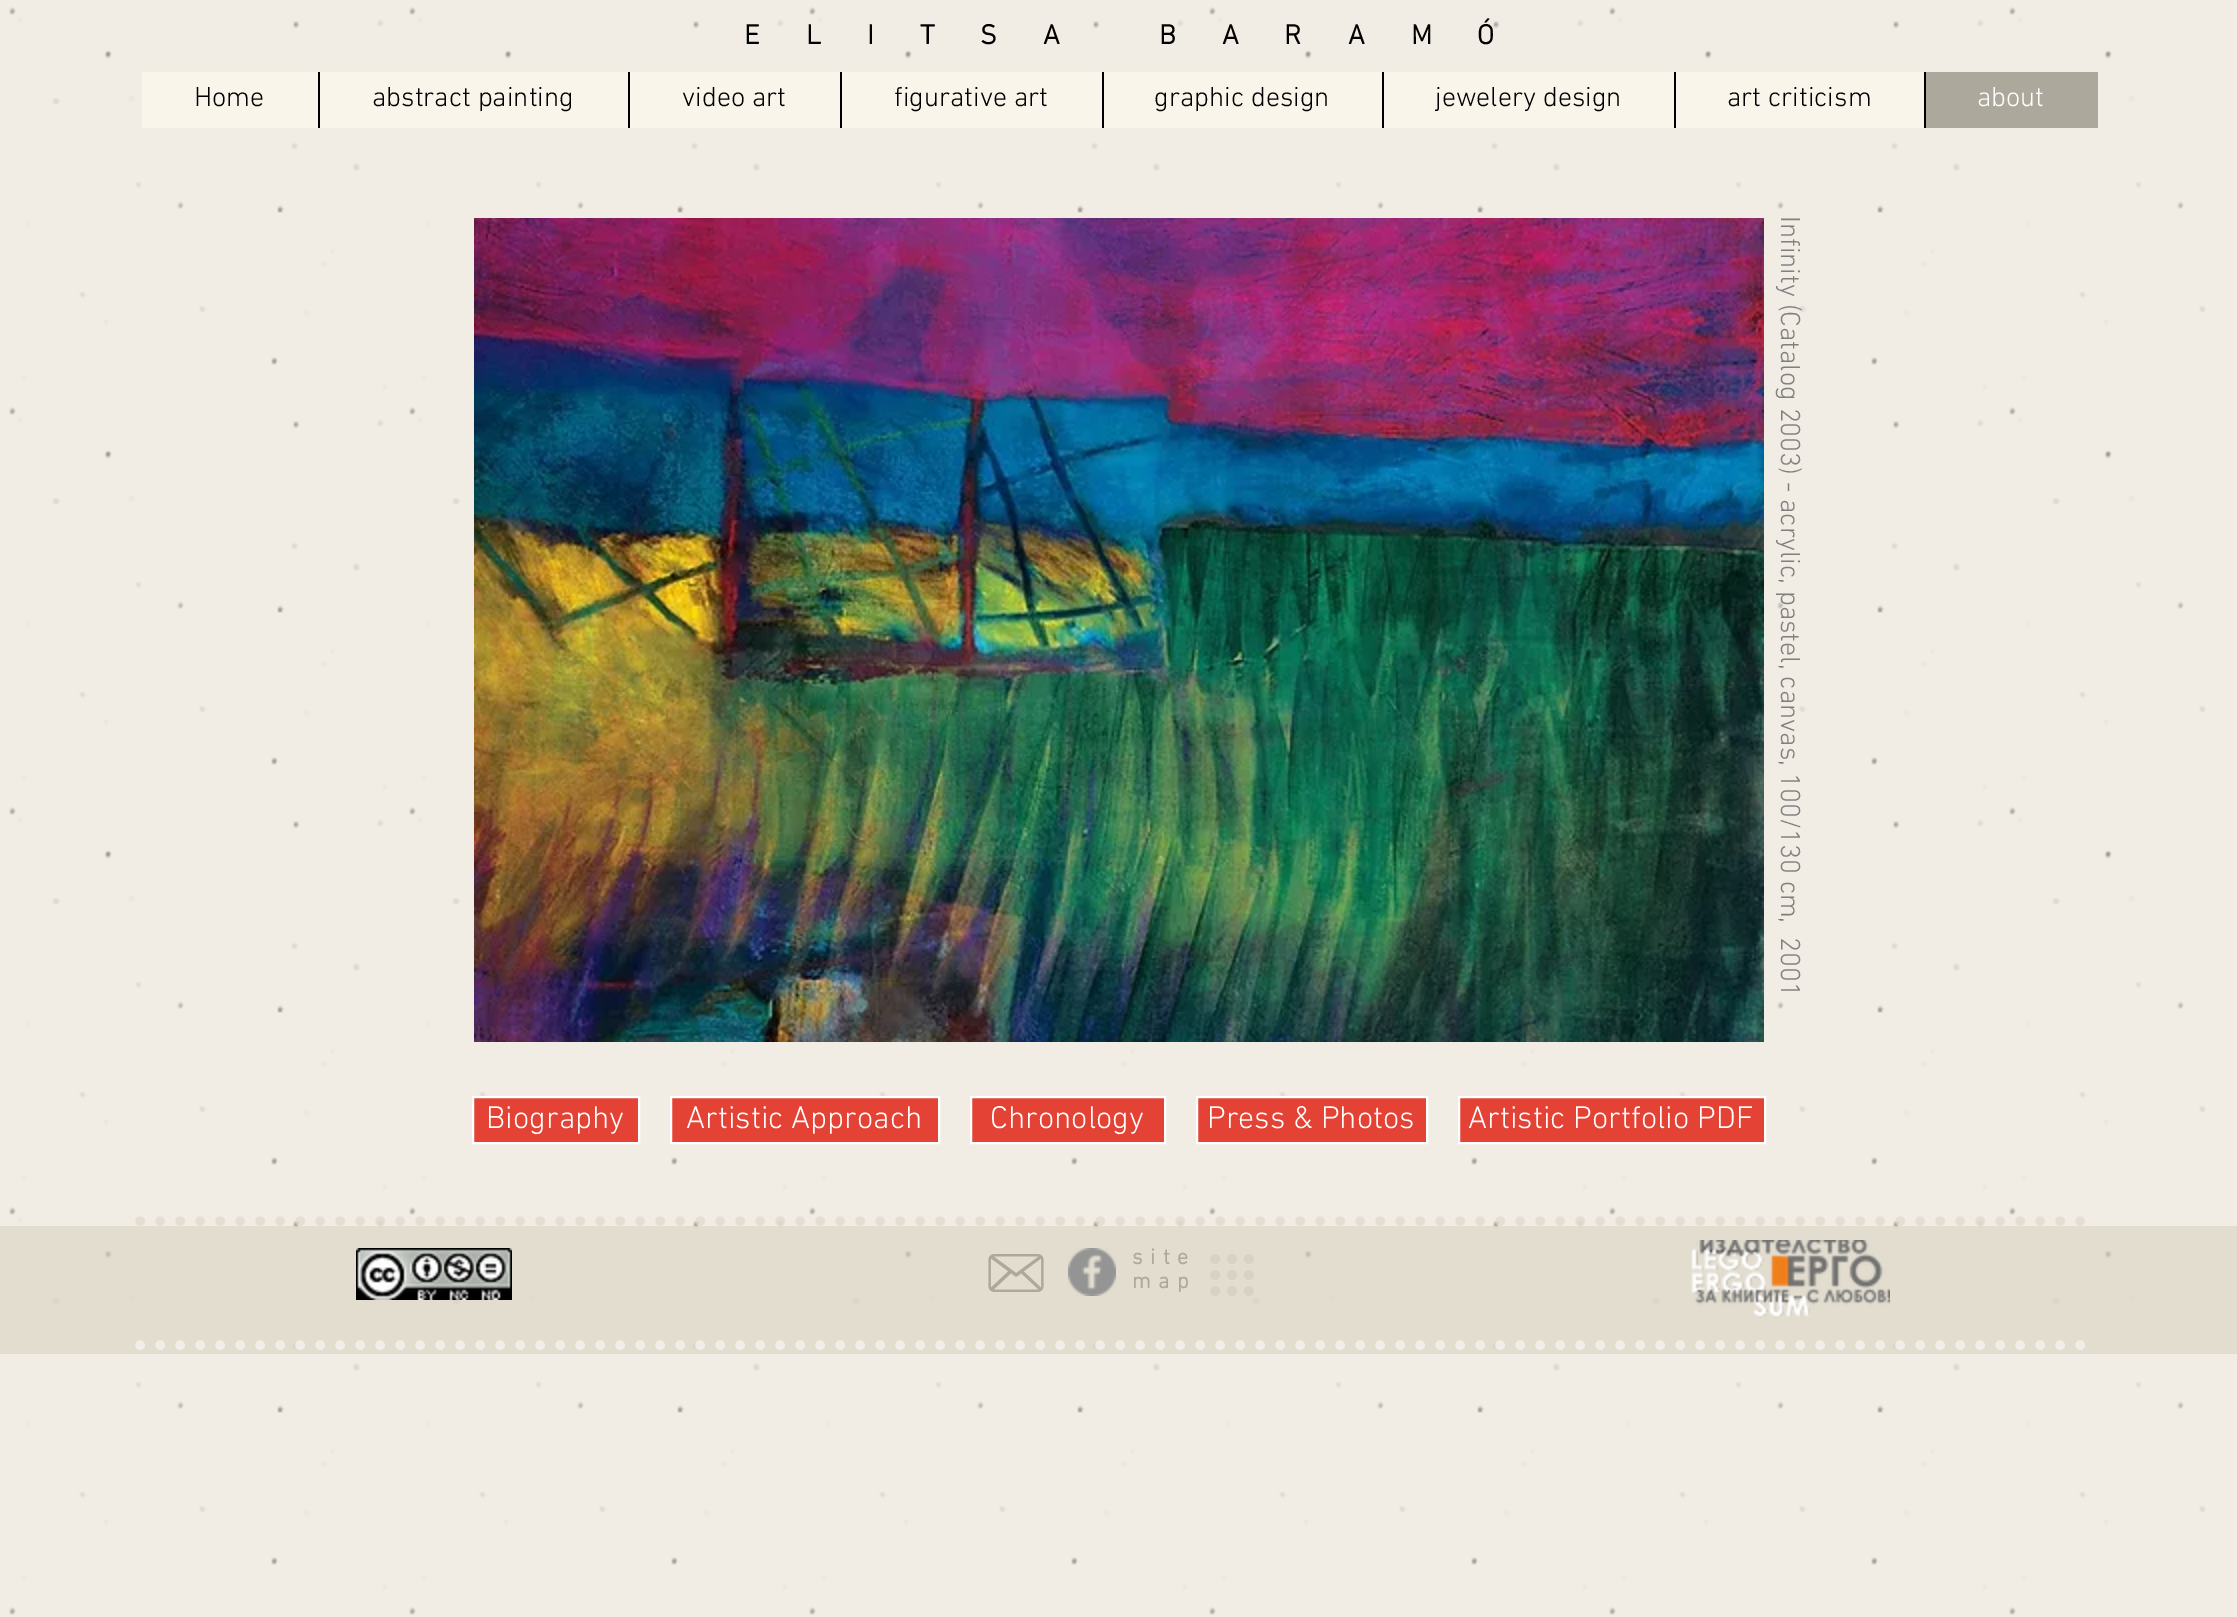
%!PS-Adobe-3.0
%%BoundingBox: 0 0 2237 1617
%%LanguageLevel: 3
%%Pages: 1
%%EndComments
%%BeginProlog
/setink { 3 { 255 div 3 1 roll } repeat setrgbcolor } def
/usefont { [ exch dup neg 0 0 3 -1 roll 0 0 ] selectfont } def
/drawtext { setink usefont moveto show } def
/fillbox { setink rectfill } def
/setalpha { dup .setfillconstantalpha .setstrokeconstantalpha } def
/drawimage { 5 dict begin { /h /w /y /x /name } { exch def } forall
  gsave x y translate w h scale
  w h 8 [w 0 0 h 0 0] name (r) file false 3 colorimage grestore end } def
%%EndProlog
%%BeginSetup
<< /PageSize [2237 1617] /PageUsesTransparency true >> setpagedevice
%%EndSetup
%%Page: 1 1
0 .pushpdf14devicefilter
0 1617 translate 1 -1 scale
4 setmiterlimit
0 0 2237 1617 242 237 228 fillbox
(assets/img1.rgb) 9 7 2197 1608 drawimage
/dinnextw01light-Bold 28 usefont
0 0 0 setink
744 44 moveto 19.6 0 (E L I T S A   B A R A M) ashow
(Ó) 1477 44 /dinnextw01light-Bold 28 0 0 0 drawtext
142 72 1782 56 250 245 235 fillbox
(Home) 194 106 /dinnextw01light-Light 28 0 0 0 drawtext
318 72 2 56 0 0 0 fillbox
(abstract painting) 372 106 /dinnextw01light-Light 28 0 0 0 drawtext
628 72 2 56 0 0 0 fillbox
(video art) 682 106 /dinnextw01light-Light 28 0 0 0 drawtext
840 72 2 56 0 0 0 fillbox
(figurative art) 894 106 /dinnextw01light-Light 28 0 0 0 drawtext
1102 72 2 56 0 0 0 fillbox
(graphic design) 1154 106 /dinnextw01light-Light 28 0 0 0 drawtext
1382 72 2 56 0 0 0 fillbox
(jewelery design) 1435 106 /dinnextw01light-Light 28 0 0 0 drawtext
1674 72 2 56 0 0 0 fillbox
(art criticism) 1727 106 /dinnextw01light-Light 28 0 0 0 drawtext
1926 72 172 56 173 168 156 fillbox
1924 72 2 56 0 0 0 fillbox
(about) 1977 106 /dinnextw01light-Light 28 255 255 255 drawtext
(assets/img2.rgb) 474 218 1290 824 drawimage
128 128 128 setink
gsave 1781 216 translate 90 rotate 0 0 moveto (Infinity \(Catalog 2003\) - acrylic, pastel, canvas, 100/130 cm,  2001) show grestore
227 66 52 setink
473 1097 moveto 639 1097 lineto 639 1143 lineto 473 1143 lineto closepath gsave fill grestore
255 255 255 setink
2 setlinewidth
stroke
(Biography) 486 1128 /dinnextw01light-Light 32 255 255 255 drawtext
227 66 52 setink
671 1097 moveto 939 1097 lineto 939 1143 lineto 671 1143 lineto closepath gsave fill grestore
255 255 255 setink
stroke
(Artistic Approach) 686 1128 /dinnextw01light-Light 32 255 255 255 drawtext
227 66 52 setink
971 1097 moveto 1165 1097 lineto 1165 1143 lineto 971 1143 lineto closepath gsave fill grestore
255 255 255 setink
stroke
(Chronology) 990 1128 /dinnextw01light-Light 32 255 255 255 drawtext
227 66 52 setink
1197 1097 moveto 1427 1097 lineto 1427 1143 lineto 1197 1143 lineto closepath gsave fill grestore
255 255 255 setink
stroke
(Press & Photos) 1207 1128 /dinnextw01light-Light 32 255 255 255 drawtext
227 66 52 setink
1459 1097 moveto 1765 1097 lineto 1765 1143 lineto 1459 1143 lineto closepath gsave fill grestore
255 255 255 setink
stroke
(Artistic Portfolio PDF) 1468 1128 /dinnextw01light-Light 32 255 255 255 drawtext
0.51 setalpha
217 210 195 setink
10 setlinewidth
1 setlinecap
[0 20] 0 setdash
140 1221 moveto 2096 1221 lineto stroke
0.6 setalpha
0 1226 2237 128 217 210 195 fillbox
1 setalpha
(assets/img3.rgb) 356 1248 156 52 drawimage
(assets/img4.rgb) 988 1254 56 38 drawimage
(assets/img5.rgb) 1068 1248 48 48 drawimage
/dinnextw01light-Bold 22 usefont
173 168 156 setink
1132 1264 moveto 7.5 0 (site) ashow
1132 1288 moveto 7.5 0 (map) ashow
(assets/img6.rgb) 1210 1254 44 42 drawimage
(assets/img7.rgb) 1691 1240 199 78 drawimage
0.51 setalpha
255 255 255 setink
140 1345 moveto 2098 1345 lineto stroke
.poppdf14devicefilter showpage
%%EOF
